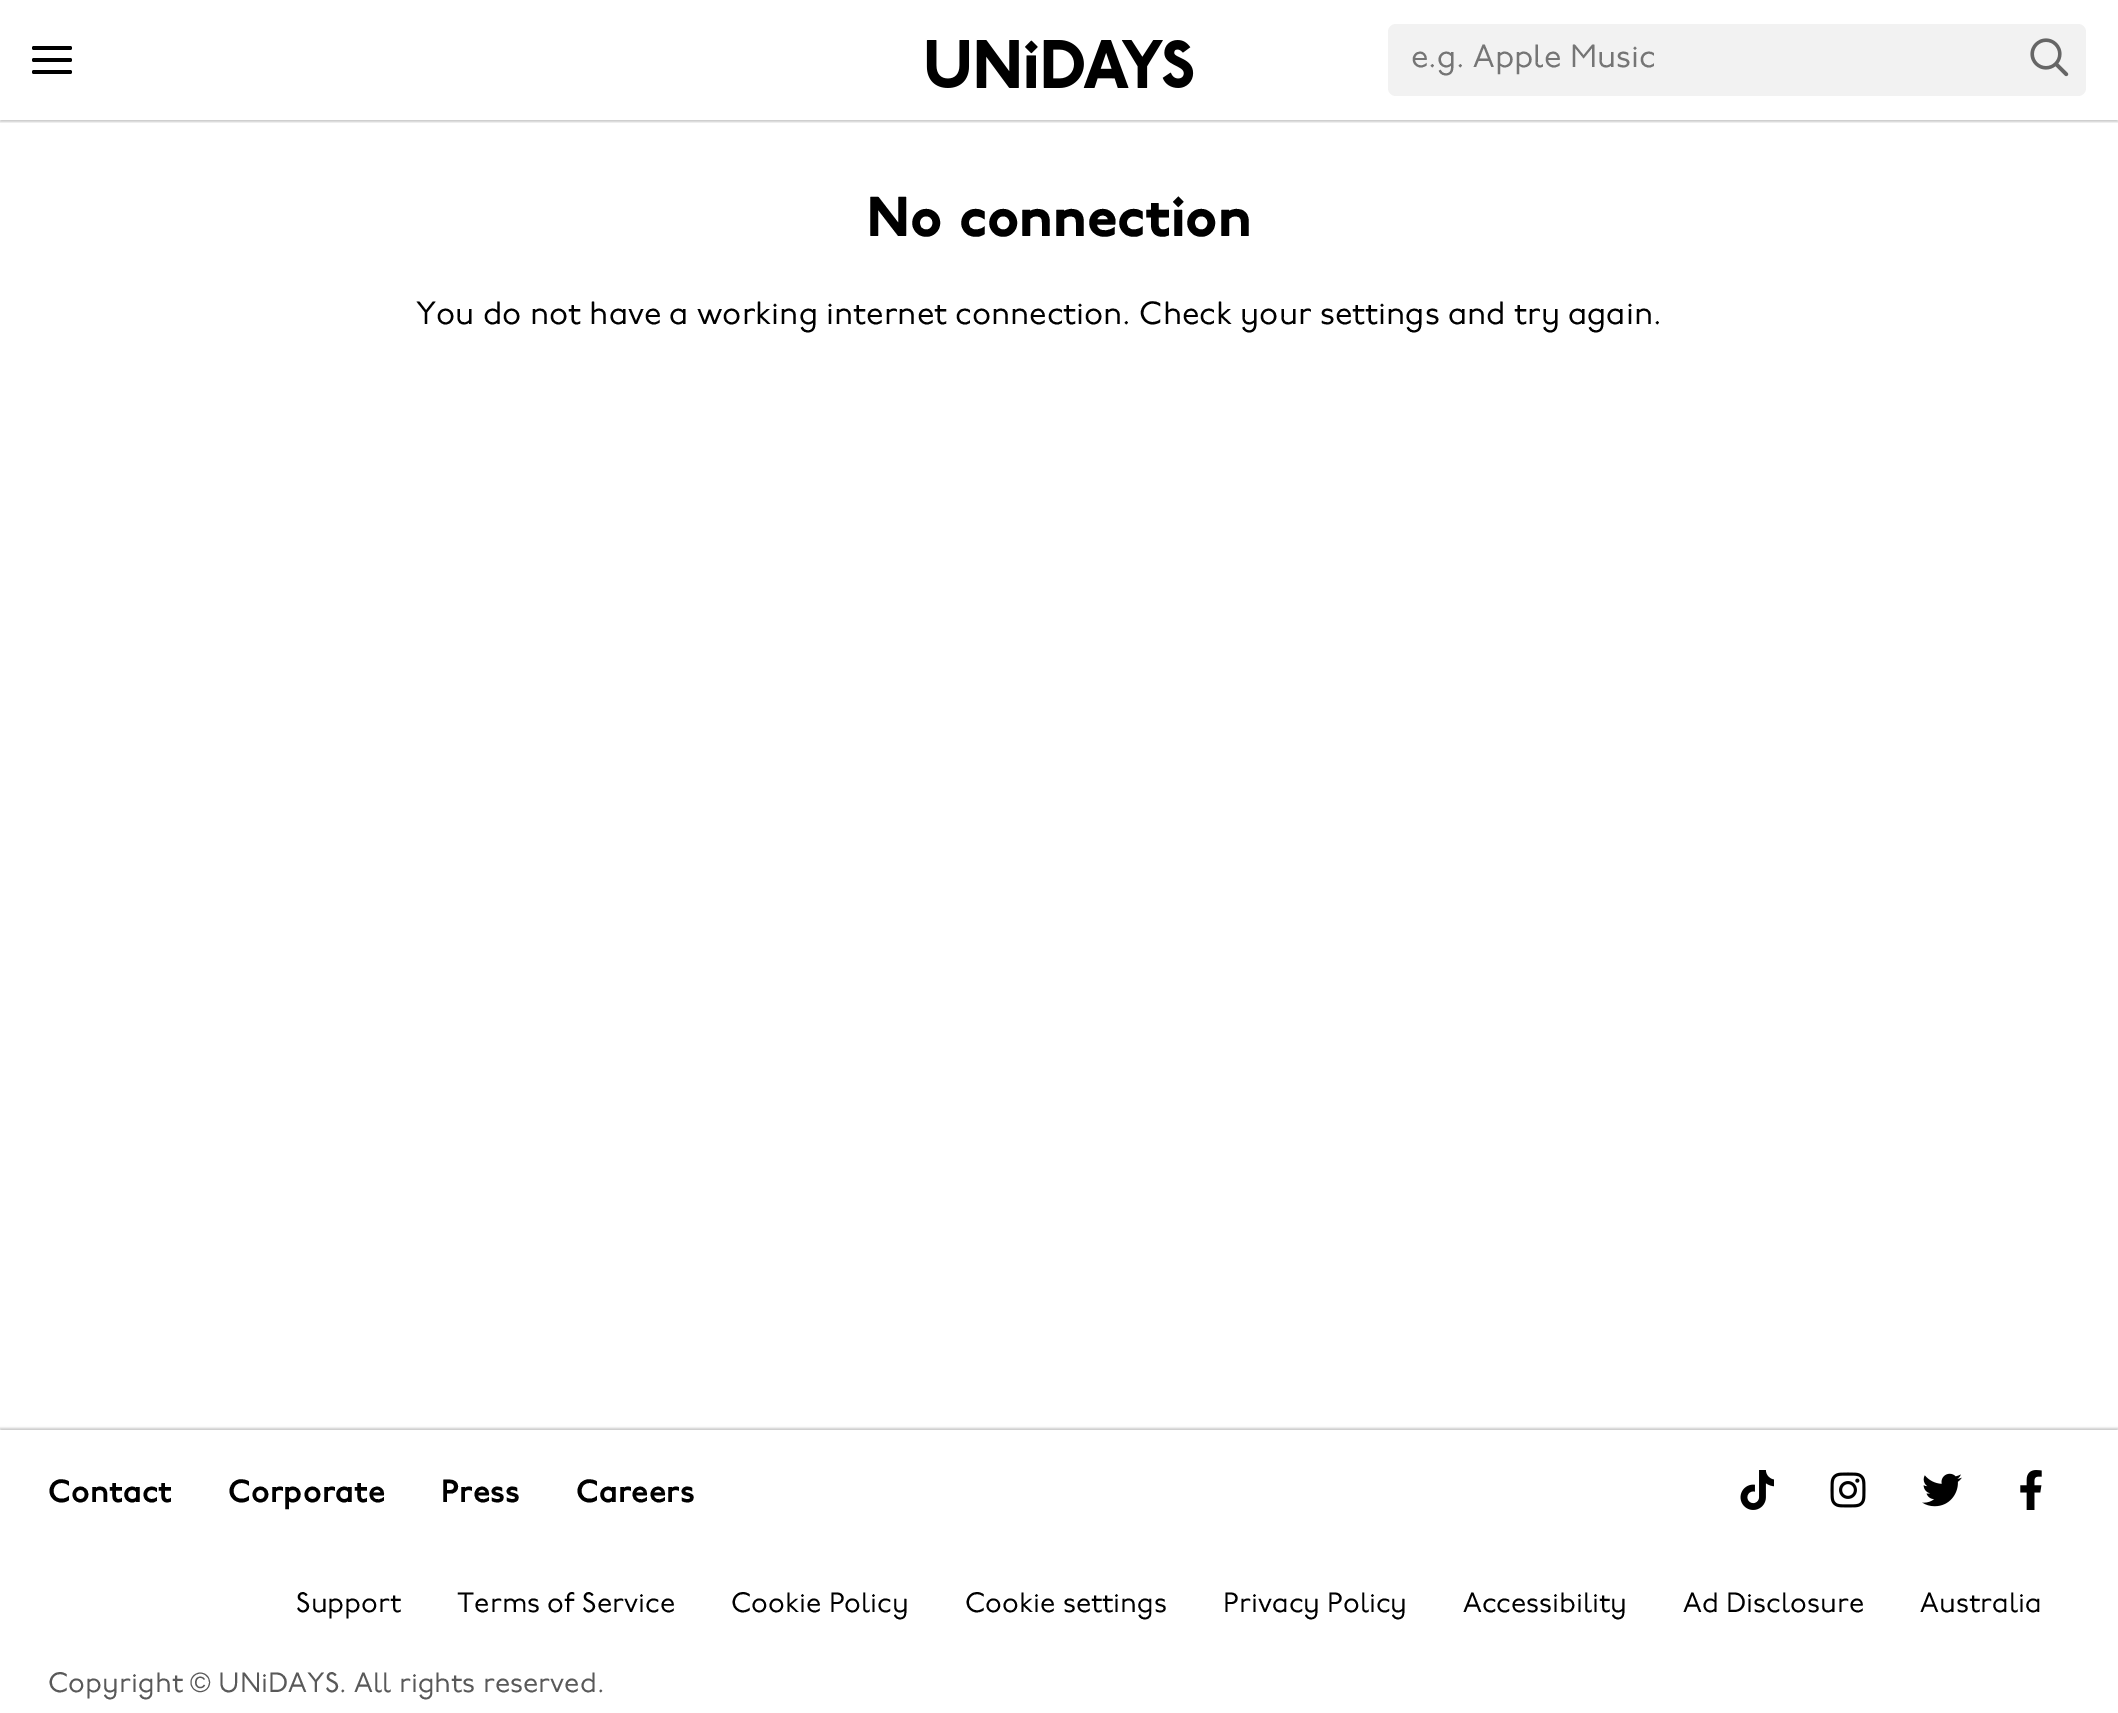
%!PS-Adobe-3.0
%%BoundingBox: 0 0 2118 1713
%%LanguageLevel: 3
%%Pages: 1
%%EndComments
%%BeginProlog
/setink { 3 { 255 div 3 1 roll } repeat setrgbcolor } def
/usefont { [ exch dup neg 0 0 3 -1 roll 0 0 ] selectfont } def
/drawtext { setink usefont moveto show } def
/fillbox { setink rectfill } def
/setalpha { dup .setfillconstantalpha .setstrokeconstantalpha } def
/rrect { 5 dict begin { /r /h /w /y /x } { exch def } forall
  x r add y moveto x w add y 2 copy h add r arct x w add y h add x 1 index r arct
  x y h add x y r arct x y 2 copy exch w add exch r arct closepath end } def
/softshadow { 12 dict begin { /a /b /q /h /w /y /x } { exch def } forall gsave /was 0 def
  9 -2 -9 { dup b mul 4 div /e exch def 1 sub .425 mul 2.718 exch exp 1 add a .99 .min exch div /now exch def
    1 1 now sub 1 was sub div sub setalpha /was now def
    w h .min e 2 mul add 0 gt { x e sub y e sub w e 2 mul add h e 2 mul add
      q e add b .6 mul add w h .min 2 div e add .min 0 .max rrect fill } if } for grestore end } def
/drawimage { 5 dict begin { /h /w /y /x /name } { exch def } forall
  gsave x y translate w h scale
  w h 8 [w 0 0 h 0 0] name (r) file false 3 colorimage grestore end } def
%%EndProlog
%%BeginSetup
<< /PageSize [2118 1713] /PageUsesTransparency true >> setpagedevice
%%EndSetup
%%Page: 1 1
0 .pushpdf14devicefilter
0 1713 translate 1 -1 scale
4 setmiterlimit
0 0 2118 1713 255 255 255 fillbox
gsave
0 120 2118 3 rectclip
0 0 0 setink
0 2 2118 120 0 1 0.2 softshadow
grestore
0 0 0 setink
32 58 40 4 2 rrect fill
32 46 40 4 2 rrect fill
32 70 40 4 2 rrect fill
(assets/img1.rgb) 926 40 268 48 drawimage
242 242 242 setink
1388 24 698 72 8 rrect fill
(e.g. Apple Music) 1411 67 /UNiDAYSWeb-Regular 32 117 117 117 drawtext
(assets/img2.rgb) 2030 38 39 39 drawimage
(No connection) 867 236 /UNiDAYSWeb-Black 56 0 0 0 drawtext
(You do not have a working internet connection. Check your settings and try again.) 416 324 /UNiDAYSWeb-Regular 32 0 0 0 drawtext
0 1428 2118 284 0 1 0.2 softshadow
0 1430 2118 283 255 255 255 fillbox
(Contact) 48 1502 /UNiDAYSWeb-SemiBold 32 0 0 0 drawtext
(Corporate) 228 1502 /UNiDAYSWeb-SemiBold 32 0 0 0 drawtext
(Press) 441 1502 /UNiDAYSWeb-SemiBold 32 0 0 0 drawtext
(Careers) 576 1502 /UNiDAYSWeb-SemiBold 32 0 0 0 drawtext
(assets/img3.rgb) 1740 1470 34 40 drawimage
(assets/img4.rgb) 1830 1472 36 36 drawimage
(assets/img5.rgb) 1922 1473 40 34 drawimage
(assets/img6.rgb) 2020 1470 22 40 drawimage
(Support) 296 1612 /UNiDAYSWeb-Regular 28 0 0 0 drawtext
(Terms of Service) 457 1612 /UNiDAYSWeb-Regular 28 0 0 0 drawtext
(Cookie Policy) 731 1612 /UNiDAYSWeb-Regular 28 0 0 0 drawtext
(Cookie settings) 965 1612 /UNiDAYSWeb-Regular 28 0 0 0 drawtext
(Privacy Policy) 1223 1612 /UNiDAYSWeb-Regular 28 0 0 0 drawtext
(Accessibility) 1463 1612 /UNiDAYSWeb-Regular 28 0 0 0 drawtext
(Ad Disclosure) 1683 1612 /UNiDAYSWeb-Regular 28 0 0 0 drawtext
(Australia) 1920 1612 /UNiDAYSWeb-Regular 28 0 0 0 drawtext
(Copyright) 48 1692 /UNiDAYSWeb-Regular 28 89 89 89 drawtext
(©) 190 1692 /LiberationSans-Regular 28 89 89 89 drawtext
(UNiDAYS. All rights reserved.) 218 1692 /UNiDAYSWeb-Regular 28 89 89 89 drawtext
.poppdf14devicefilter showpage
%%EOF
